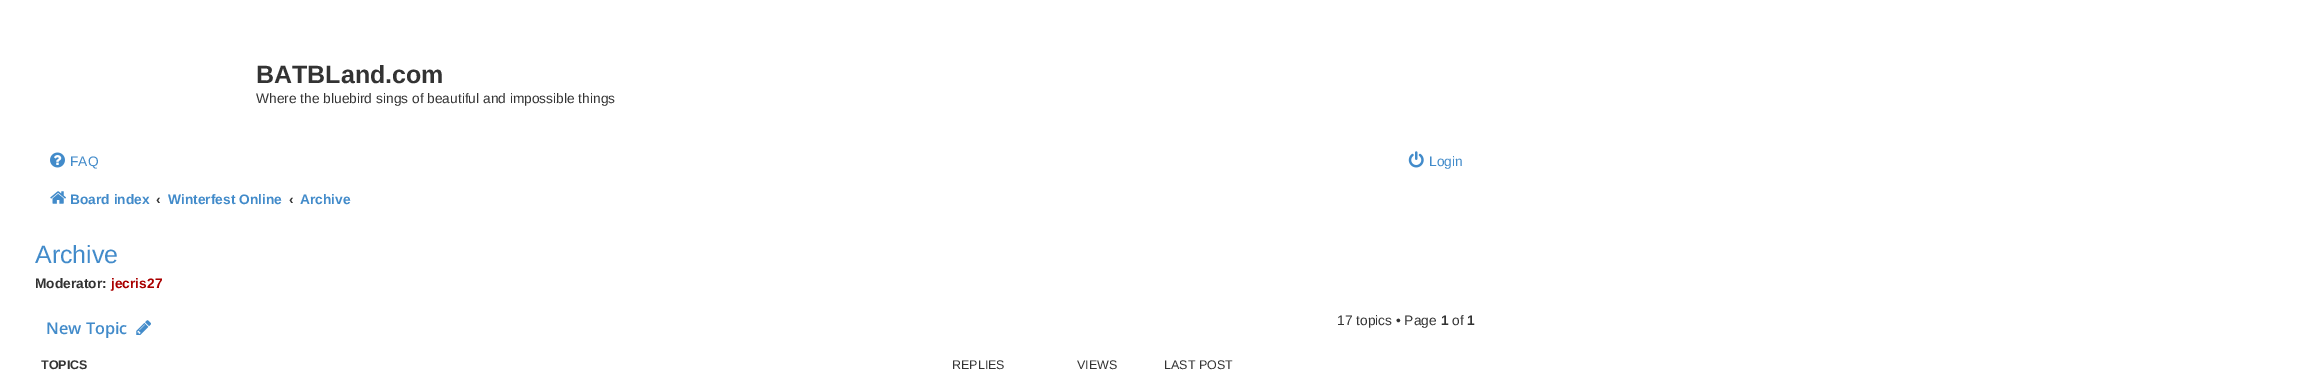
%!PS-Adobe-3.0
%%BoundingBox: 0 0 2305 380
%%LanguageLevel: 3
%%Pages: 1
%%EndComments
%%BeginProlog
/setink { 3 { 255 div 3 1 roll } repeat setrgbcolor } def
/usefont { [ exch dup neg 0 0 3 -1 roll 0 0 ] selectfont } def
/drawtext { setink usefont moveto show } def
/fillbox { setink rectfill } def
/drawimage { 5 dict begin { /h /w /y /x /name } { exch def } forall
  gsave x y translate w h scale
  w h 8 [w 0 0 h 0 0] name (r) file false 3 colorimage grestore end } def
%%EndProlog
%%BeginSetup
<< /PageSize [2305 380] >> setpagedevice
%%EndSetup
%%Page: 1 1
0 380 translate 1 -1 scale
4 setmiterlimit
0 0 2305 380 255 255 255 fillbox
(BATBLand.com) 256 83 /LiberationSans-Bold 25 51 51 51 drawtext
(Where the bluebird sings of beautiful and impossible things) 256 103 /LiberationSans-Regular 13.75 51 51 51 drawtext
(assets/img1.rgb) 50 152 15 16 drawimage
(FAQ) 70 166 /LiberationSans-Regular 13.75 66 139 202 drawtext
(assets/img2.rgb) 1408 151 16 17 drawimage
(Login) 1429 166 /LiberationSans-Regular 13.75 66 139 202 drawtext
(assets/img3.rgb) 50 191 16 13 drawimage
(Board index) 70 204 /LiberationSans-Bold 13.75 66 139 202 drawtext
(‹) 156 204 /LiberationSans-Bold 13.75 51 51 51 drawtext
(Winterfest Online) 168 204 /LiberationSans-Bold 13.75 66 139 202 drawtext
(‹) 289 204 /LiberationSans-Bold 13.75 51 51 51 drawtext
(Archive) 300 204 /LiberationSans-Bold 13.75 66 139 202 drawtext
(Archive) 35 263 /LiberationSans-Regular 25 66 139 202 drawtext
(Moderator:) 35 288 /LiberationSans-Bold 13.75 51 51 51 drawtext
(jecris27) 111 288 /LiberationSans-Bold 13.75 170 0 0 drawtext
(New Topic) 46 334 /OpenSans-SemiBold 16.25 66 139 202 drawtext
(assets/img4.rgb) 136 320 15 15 drawimage
(17 topics • Page) 1337 325 /LiberationSans-Regular 13.75 51 51 51 drawtext
(1) 1441 325 /LiberationSans-Bold 13.75 51 51 51 drawtext
(of) 1452 325 /LiberationSans-Regular 13.75 51 51 51 drawtext
(1) 1467 325 /LiberationSans-Bold 13.75 51 51 51 drawtext
(TOPICS) 41 369 /LiberationSans-Bold 12.5 51 51 51 drawtext
(REPLIES) 952 369 /LiberationSans-Regular 12.5 51 51 51 drawtext
(VIEWS) 1077 369 /LiberationSans-Regular 12.5 51 51 51 drawtext
(LAST POST) 1164 369 /LiberationSans-Regular 12.5 51 51 51 drawtext
showpage
%%EOF
